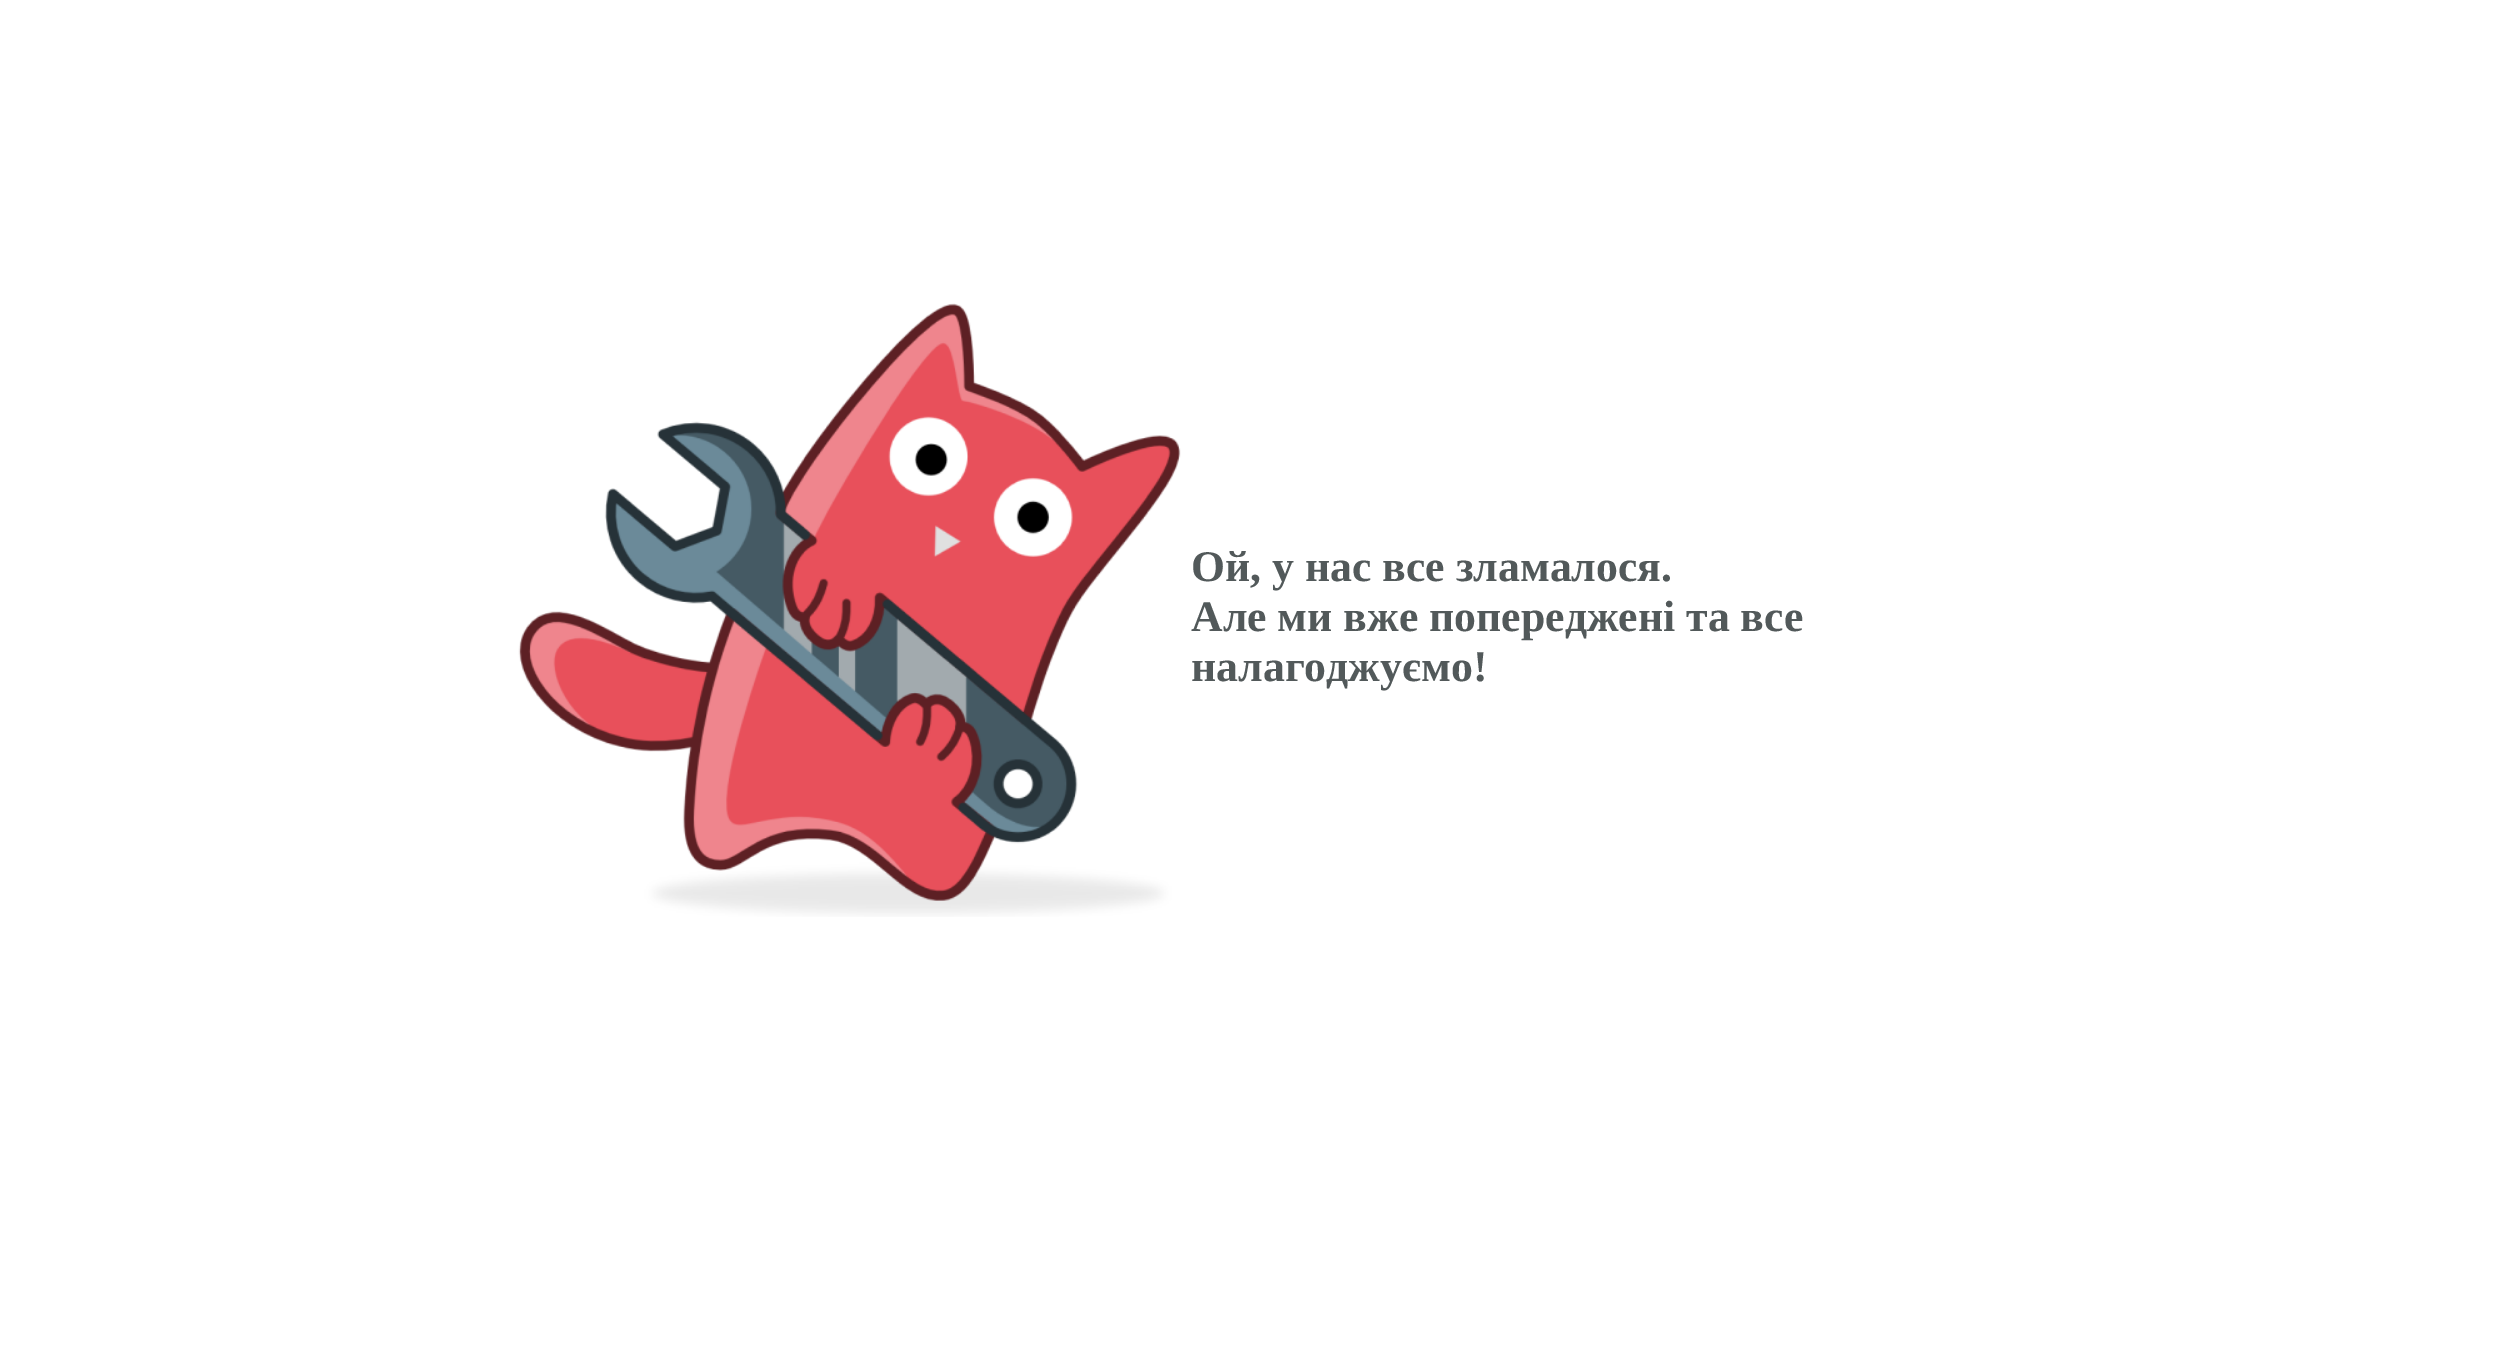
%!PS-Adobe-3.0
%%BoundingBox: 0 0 2509 1349
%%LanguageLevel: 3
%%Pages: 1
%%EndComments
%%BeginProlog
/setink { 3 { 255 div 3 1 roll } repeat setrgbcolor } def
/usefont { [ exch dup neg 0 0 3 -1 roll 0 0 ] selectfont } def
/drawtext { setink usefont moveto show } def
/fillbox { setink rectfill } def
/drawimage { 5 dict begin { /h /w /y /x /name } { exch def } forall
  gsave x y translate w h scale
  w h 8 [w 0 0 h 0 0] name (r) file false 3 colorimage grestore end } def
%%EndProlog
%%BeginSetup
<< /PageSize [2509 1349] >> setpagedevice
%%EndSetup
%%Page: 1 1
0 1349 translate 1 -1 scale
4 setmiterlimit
0 0 2509 1349 255 255 255 fillbox
(assets/img1.rgb) 518 303 663 614 drawimage
(Ой, у нас все зламалося.) 1191 581 /LiberationSerif-Bold 43.75 82 89 90 drawtext
(Але ми вже попереджені та все) 1191 631 /LiberationSerif-Bold 43.75 82 89 90 drawtext
(налагоджуємо!) 1191 681 /LiberationSerif-Bold 43.75 82 89 90 drawtext
showpage
%%EOF
